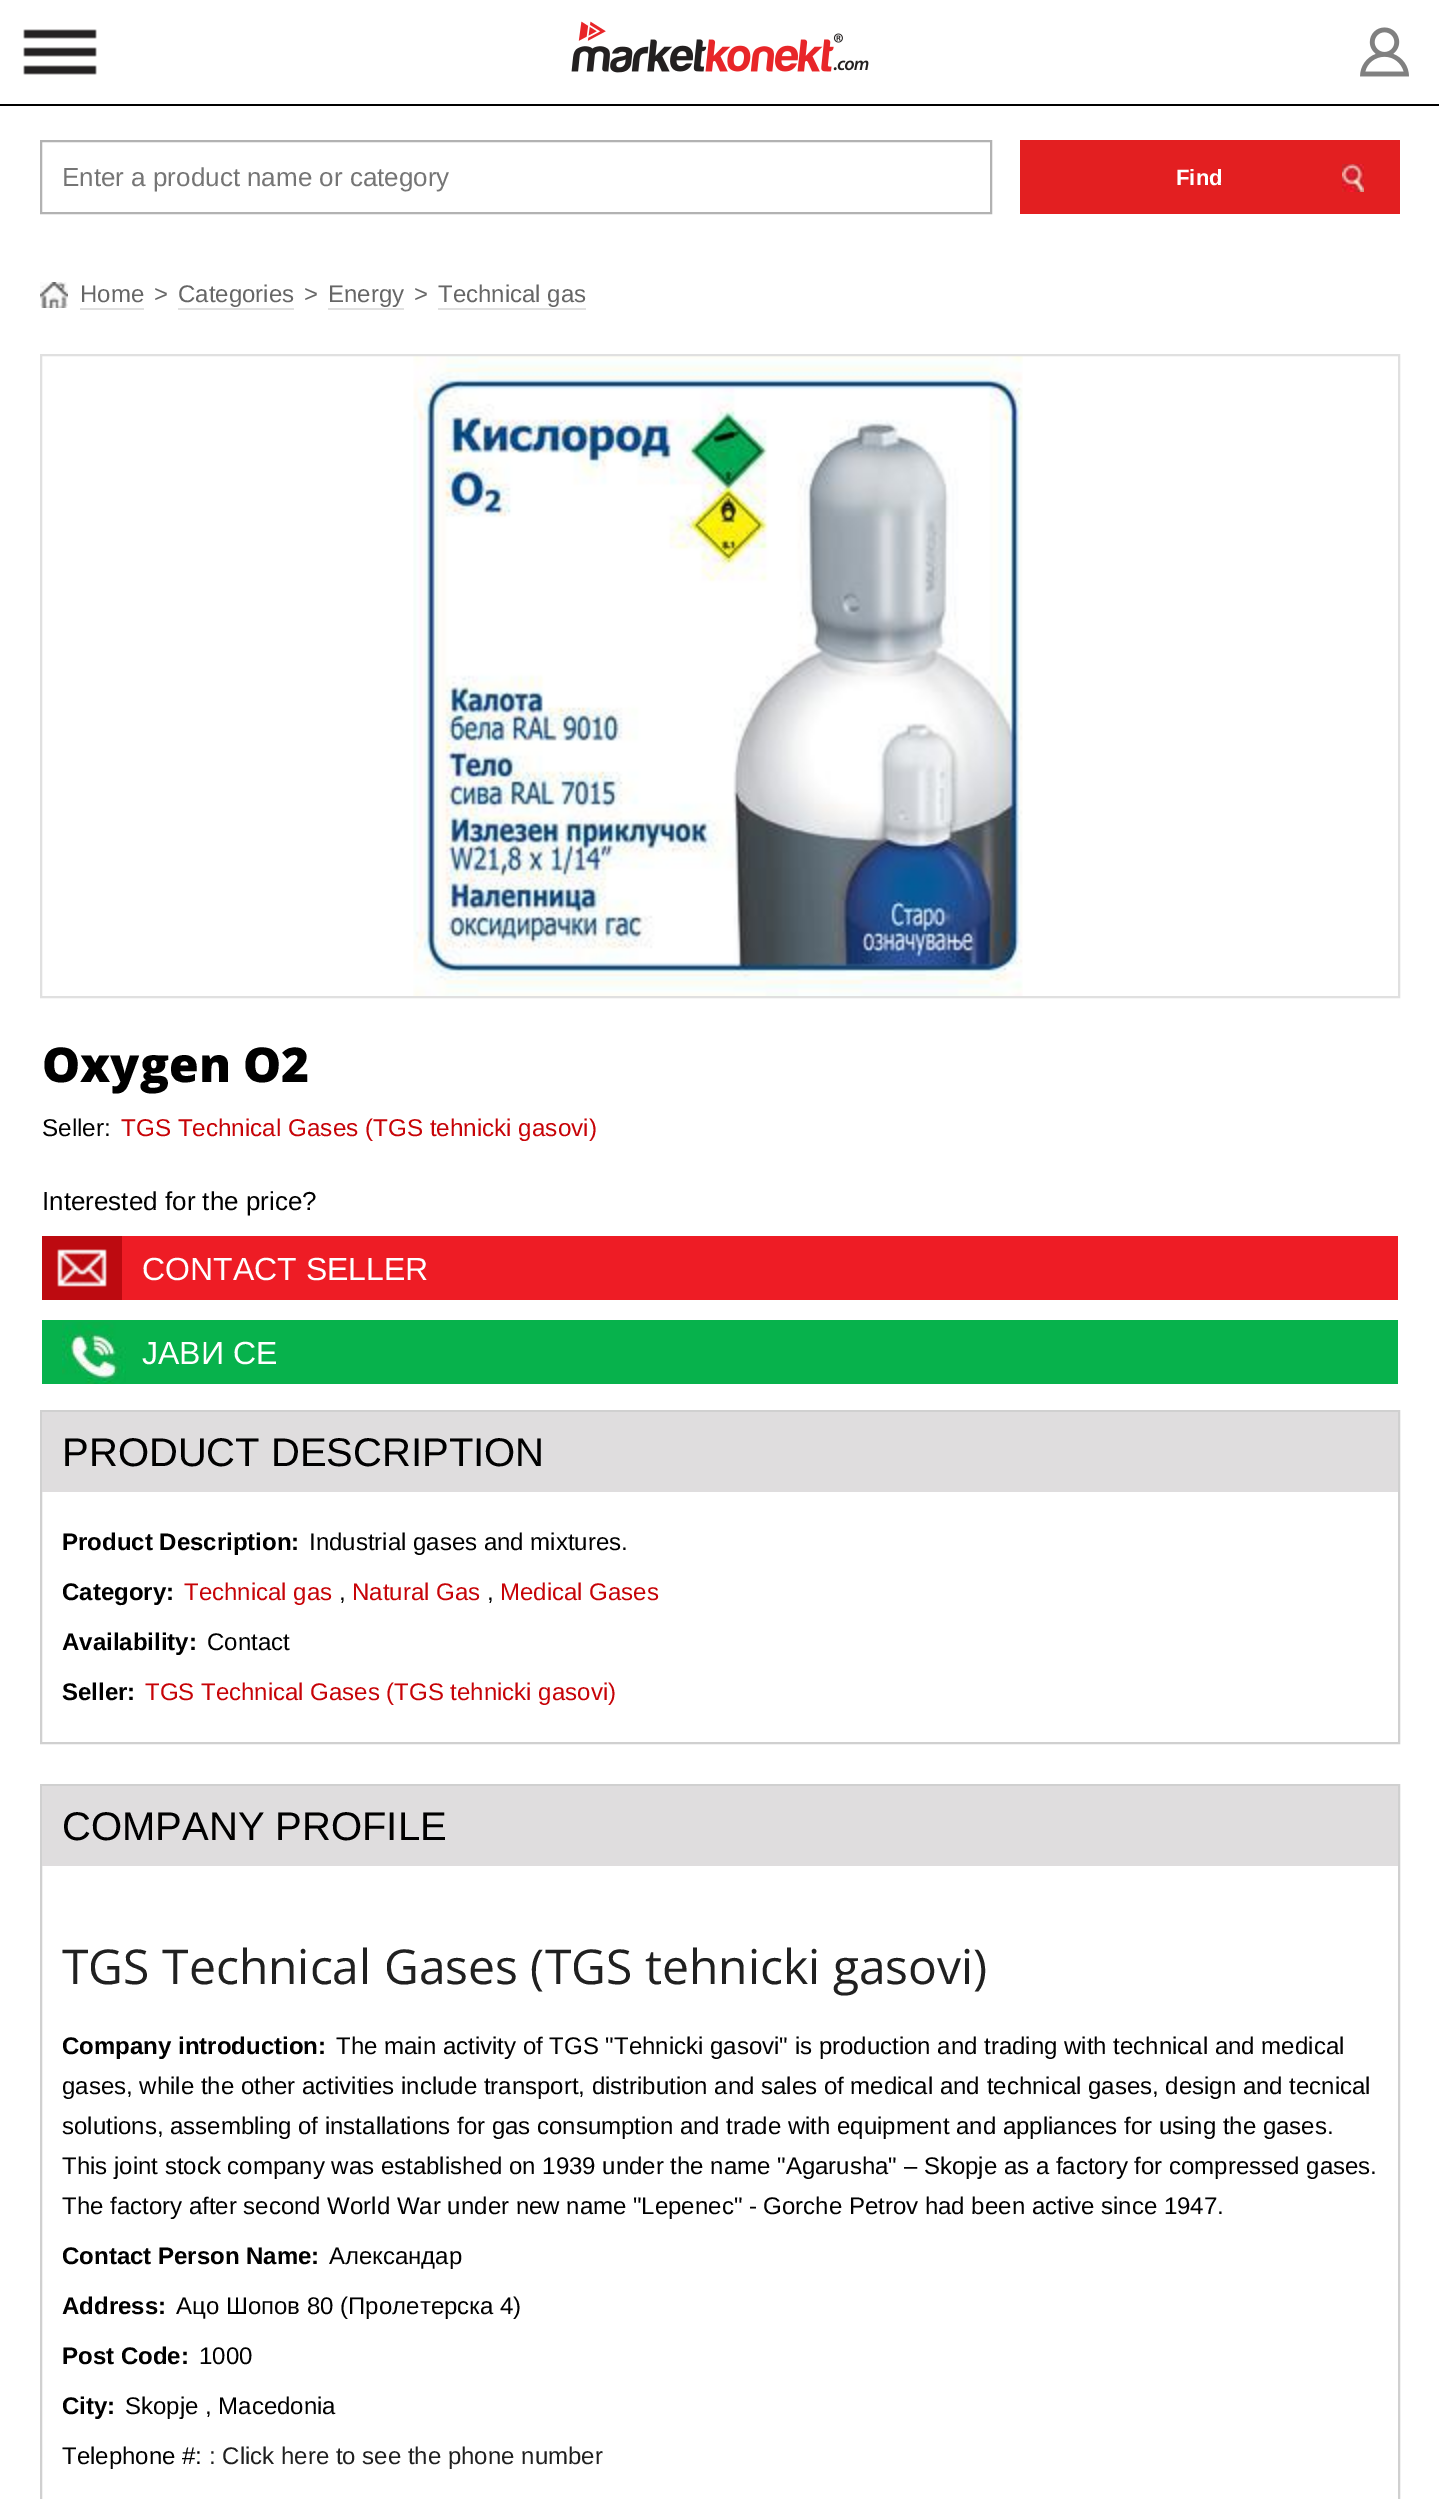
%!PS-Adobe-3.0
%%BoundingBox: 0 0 1439 2499
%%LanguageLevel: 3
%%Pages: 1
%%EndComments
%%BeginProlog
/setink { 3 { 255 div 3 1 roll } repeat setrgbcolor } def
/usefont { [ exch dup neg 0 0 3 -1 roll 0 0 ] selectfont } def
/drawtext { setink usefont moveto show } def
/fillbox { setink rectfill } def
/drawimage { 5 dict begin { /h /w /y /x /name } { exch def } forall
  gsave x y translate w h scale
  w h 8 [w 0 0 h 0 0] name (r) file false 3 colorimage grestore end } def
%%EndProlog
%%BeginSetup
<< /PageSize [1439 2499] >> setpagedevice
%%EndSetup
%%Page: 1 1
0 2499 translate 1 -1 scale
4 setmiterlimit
0 0 1439 2499 255 255 255 fillbox
0 104 1439 2 0 0 0 fillbox
(assets/img1.rgb) 23 29 74 46 drawimage
(assets/img2.rgb) 571 21 298 52 drawimage
(assets/img3.rgb) 1360 27 49 50 drawimage
178 178 178 setink
2 setlinewidth
41 141 950 72 rectstroke
(Enter a product name or category) 62 186 /LiberationSans-Regular 26 117 117 117 drawtext
1020 140 380 74 227 31 33 fillbox
(assets/img4.rgb) 1342 164 22 28 drawimage
(Find) 1176 185 /LiberationSans-Bold 22 255 255 255 drawtext
(assets/img5.rgb) 40 282 28 26 drawimage
(Home) 80 302 /LiberationSans-Regular 24 102 102 102 drawtext
80 308 64 2 224 224 224 fillbox
(>) 154 302 /LiberationSans-Regular 24 102 102 102 drawtext
(Categories) 178 302 /LiberationSans-Regular 24 102 102 102 drawtext
178 308 116 2 224 224 224 fillbox
(>) 304 302 /LiberationSans-Regular 24 102 102 102 drawtext
(Energy) 328 302 /LiberationSans-Regular 24 102 102 102 drawtext
328 308 76 2 224 224 224 fillbox
(>) 414 302 /LiberationSans-Regular 24 102 102 102 drawtext
(Technical gas) 438 302 /LiberationSans-Regular 24 102 102 102 drawtext
438 308 148 2 224 224 224 fillbox
(assets/img6.rgb) 413 356 610 640 drawimage
41 355 1358 642 rectstroke
(Oxygen O2) 42 1082 /OpenSans-ExtraBold 48 0 0 0 drawtext
(Seller:) 42 1136 /LiberationSans-Regular 24.25 0 0 0 drawtext
(TGS Technical Gases \(TGS tehnicki gasovi\)) 121 1136 /LiberationSans-Regular 24.25 199 3 7 drawtext
(Interested for the price?) 42 1210 /LiberationSans-Regular 26 0 0 0 drawtext
122 1236 1276 64 238 28 37 fillbox
(assets/img7.rgb) 42 1236 80 64 drawimage
(CONTACT SELLER) 142 1280 /LiberationSans-Regular 32 255 255 255 drawtext
42 1320 1356 64 7 178 76 fillbox
(assets/img8.rgb) 62 1322 64 62 drawimage
(ЈАВИ СЕ) 142 1364 /LiberationSans-Regular 32 255 255 255 drawtext
208 208 208 setink
41 1411 1358 332 rectstroke
42 1412 1356 80 223 221 222 fillbox
(PRODUCT DESCRIPTION) 62 1466 /LiberationSans-Regular 40 0 0 0 drawtext
(Product Description:) 62 1550 /LiberationSans-Bold 24 0 0 0 drawtext
(Industrial gases and mixtures.) 309 1550 /LiberationSans-Regular 24 0 0 0 drawtext
(Category:) 62 1600 /LiberationSans-Bold 24 0 0 0 drawtext
(Technical gas) 184 1600 /LiberationSans-Regular 24 199 3 7 drawtext
(,) 339 1600 /LiberationSans-Regular 24 0 0 0 drawtext
(Natural Gas) 352 1600 /LiberationSans-Regular 24 199 3 7 drawtext
(,) 487 1600 /LiberationSans-Regular 24 0 0 0 drawtext
(Medical Gases) 500 1600 /LiberationSans-Regular 24 199 3 7 drawtext
(Availability:) 62 1650 /LiberationSans-Bold 24 0 0 0 drawtext
(Contact) 207 1650 /LiberationSans-Regular 24 0 0 0 drawtext
(Seller:) 62 1700 /LiberationSans-Bold 24 0 0 0 drawtext
(TGS Technical Gases \(TGS tehnicki gasovi\)) 145 1700 /LiberationSans-Regular 24 199 3 7 drawtext
208 208 208 setink
41 1785 1358 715 rectstroke
42 1786 1356 80 223 221 222 fillbox
(COMPANY PROFILE) 62 1840 /LiberationSans-Regular 40 0 0 0 drawtext
(TGS Technical Gases \(TGS tehnicki gasovi\)) 62 1984 /OpenSans-Regular 48 32 32 32 drawtext
(Company introduction:) 62 2054 /LiberationSans-Bold 24 0 0 0 drawtext
(The main activity of TGS "Tehnicki gasovi" is production and trading with technical and medical) 336 2054 /LiberationSans-Regular 24 0 0 0 drawtext
(gases, while the other activities include transport, distribution and sales of medical and technical gases, design and tecnical) 62 2094 /LiberationSans-Regular 24 0 0 0 drawtext
(solutions, assembling of installations for gas consumption and trade with equipment and appliances for using the gases.) 62 2134 /LiberationSans-Regular 24 0 0 0 drawtext
(This joint stock company was established on 1939 under the name "Agarusha" – Skopje as a factory for compressed gases.) 62 2174 /LiberationSans-Regular 24 0 0 0 drawtext
(The factory after second World War under new name "Lepenec" - Gorche Petrov had been active since 1947.) 62 2214 /LiberationSans-Regular 24 0 0 0 drawtext
(Contact Person Name:) 62 2264 /LiberationSans-Bold 24 0 0 0 drawtext
(Александар) 329 2264 /LiberationSans-Regular 24 0 0 0 drawtext
(Address:) 62 2314 /LiberationSans-Bold 24 0 0 0 drawtext
(Ацо Шопов 80 \(Пролетерска 4\)) 176 2314 /LiberationSans-Regular 24 0 0 0 drawtext
(Post Code:) 62 2364 /LiberationSans-Bold 24 0 0 0 drawtext
(1000) 199 2364 /LiberationSans-Regular 24 0 0 0 drawtext
(City:) 62 2414 /LiberationSans-Bold 24 0 0 0 drawtext
(Skopje , Macedonia) 125 2414 /LiberationSans-Regular 24 0 0 0 drawtext
(Telephone #:) 62 2464 /LiberationSans-Regular 24 0 0 0 drawtext
(: Click here to see the phone number) 209 2464 /LiberationSans-Regular 24 32 32 32 drawtext
showpage
%%EOF
